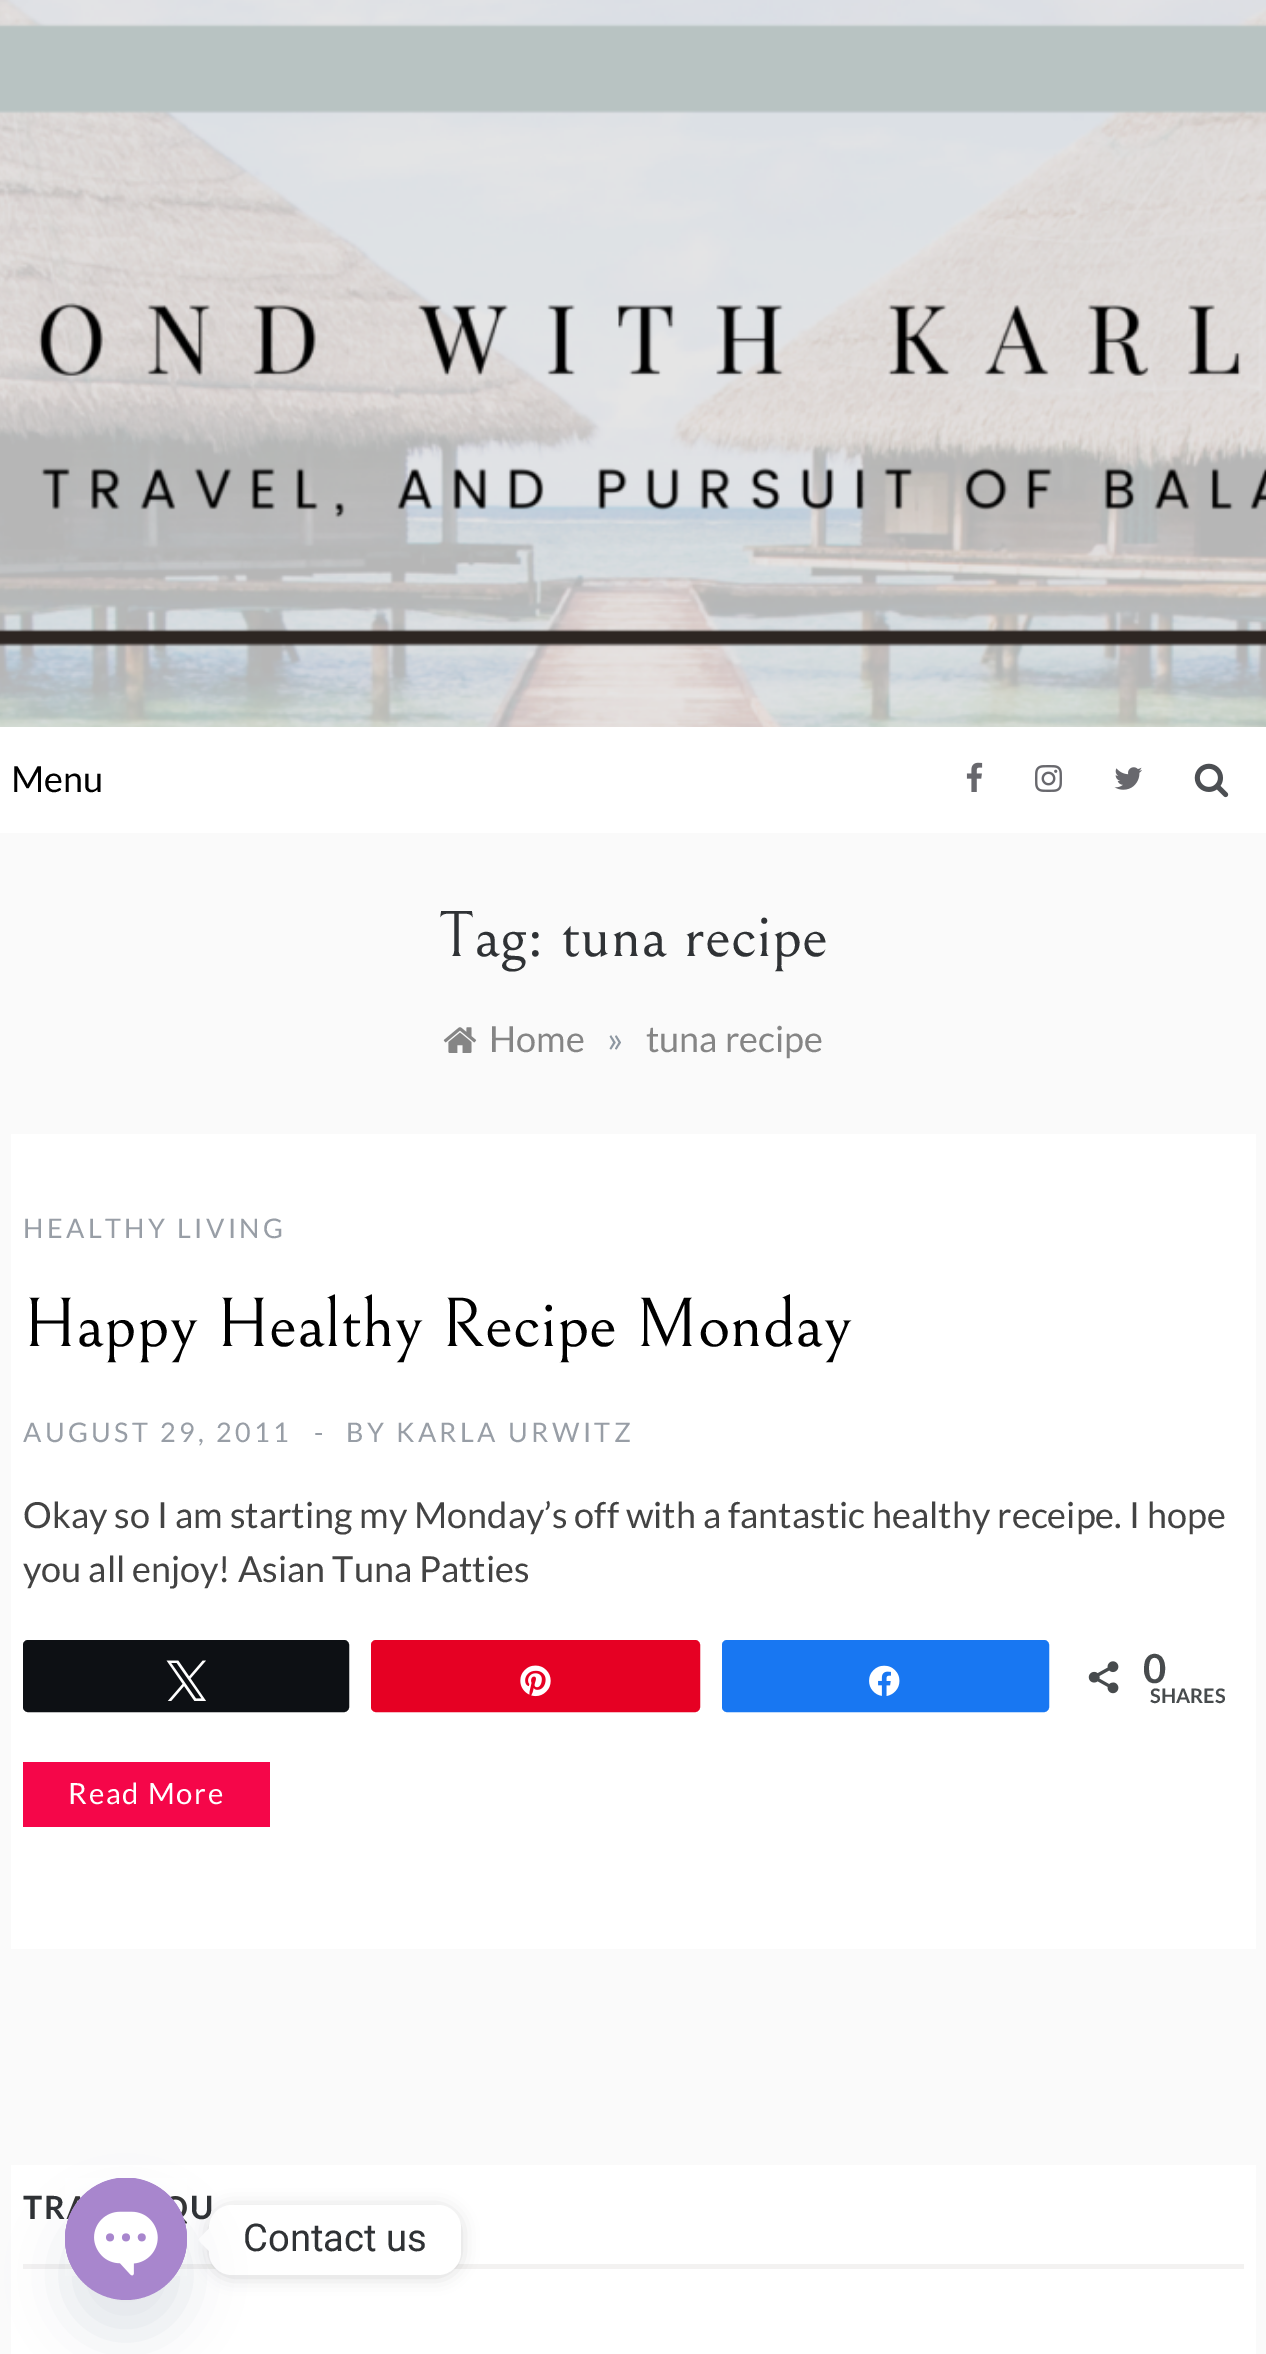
%!PS-Adobe-3.0
%%BoundingBox: 0 0 1266 2354
%%LanguageLevel: 3
%%Pages: 1
%%EndComments
%%BeginProlog
/setink { 3 { 255 div 3 1 roll } repeat setrgbcolor } def
/usefont { [ exch dup neg 0 0 3 -1 roll 0 0 ] selectfont } def
/drawtext { setink usefont moveto show } def
/fillbox { setink rectfill } def
/setalpha { dup .setfillconstantalpha .setstrokeconstantalpha } def
/disc { newpath 0 360 arc closepath } def
/rrect { 5 dict begin { /r /h /w /y /x } { exch def } forall
  x r add y moveto x w add y 2 copy h add r arct x w add y h add x 1 index r arct
  x y h add x y r arct x y 2 copy exch w add exch r arct closepath end } def
/softshadow { 12 dict begin { /a /b /q /h /w /y /x } { exch def } forall gsave /was 0 def
  9 -2 -9 { dup b mul 4 div /e exch def 1 sub .425 mul 2.718 exch exp 1 add a .99 .min exch div /now exch def
    1 1 now sub 1 was sub div sub setalpha /was now def
    w h .min e 2 mul add 0 gt { x e sub y e sub w e 2 mul add h e 2 mul add
      q e add b .6 mul add w h .min 2 div e add .min 0 .max rrect fill } if } for grestore end } def
/drawimage { 5 dict begin { /h /w /y /x /name } { exch def } forall
  gsave x y translate w h scale
  w h 8 [w 0 0 h 0 0] name (r) file false 3 colorimage grestore end } def
%%EndProlog
%%BeginSetup
<< /PageSize [1266 2354] /PageUsesTransparency true >> setpagedevice
%%EndSetup
%%Page: 1 1
0 .pushpdf14devicefilter
0 2354 translate 1 -1 scale
4 setmiterlimit
0 0 1266 2354 250 250 250 fillbox
(assets/img1.rgb) 0 0 1266 727 drawimage
0 727 1266 106 255 255 255 fillbox
(Menu) 11 792 /Lato-Regular 36 0 0 0 drawtext
(assets/img2.rgb) 966 762 17 30 drawimage
(assets/img3.rgb) 1035 765 27 27 drawimage
(assets/img4.rgb) 1114 767 28 23 drawimage
(assets/img5.rgb) 1194 763 35 35 drawimage
(Tag: tuna recipe) 438 956 /Bellefair-Regular 65.25 47 50 53 drawtext
(assets/img6.rgb) 443 1027 34 26 drawimage
(Home) 489 1052 /Lato-Regular 36 133 133 133 drawtext
(») 607 1052 /Lato-Regular 36 141 151 161 drawtext
(tuna recipe) 646 1052 /Lato-Regular 36 133 133 133 drawtext
11 1134 1245 815 255 255 255 fillbox
/Lato-Regular 27 usefont
152 158 166 setink
23 1238 moveto 3.4 0 (HEALTHY LIVING) ashow
(Happy Healthy Recipe Monday) 23 1346 /Bellefair-Regular 70.25 0 0 0 drawtext
/Lato-Regular 27 usefont
152 158 166 setink
23 1442 moveto 3.4 0 (AUGUST 29, 2011) ashow
314 1442 moveto 3.4 0 (-) ashow
346 1442 moveto 3.4 0 (BY KARLA URWITZ) ashow
(Okay so I am starting my Monday’s off with a fantastic healthy receipe. I hope) 23 1528 /Lato-Regular 36 67 67 67 drawtext
(you all enjoy! Asian Tuna Patties) 23 1582 /Lato-Regular 36 67 67 67 drawtext
13 16 20 setink
24 1641 324 70 4 rrect gsave fill grestore
2 setlinewidth
stroke
(assets/img7.rgb) 166 1660 40 41 drawimage
230 0 35 setink
372 1641 327 70 4 rrect gsave fill grestore
stroke
(assets/img8.rgb) 520 1665 31 32 drawimage
24 119 242 setink
723 1641 325 70 4 rrect gsave fill grestore
stroke
(assets/img9.rgb) 869 1665 31 31 drawimage
(assets/img10.rgb) 1088 1661 31 33 drawimage
(0) 1143 1683 /Lato-Bold 40 71 75 77 drawtext
(SHARES) 1150 1703 /Lato-Bold 20 71 75 77 drawtext
23 1762 247 65 245 6 73 fillbox
/Lato-Regular 29.25 usefont
255 255 255 setink
68 1804 moveto 1.75 0 (Read More) ashow
11 2165 1245 189 255 255 255 fillbox
23 2264 1221 5 243 242 241 fillbox
/Lato-Bold 32 usefont
47 50 53 setink
23 2219 moveto 2 0 (TR) ashow
190 2219 moveto 2 0 (U) ashow
0 0 0 setink
209 2207 252 70 23 8.5 0.15 softshadow
255 255 255 setink
209 2205 252 70 23 rrect fill
209 2228.5 moveto 209 2251 lineto 198 2240 lineto closepath fill
73 104 126 setink
65 2214 122 122 61 27 0.16 softshadow
168 134 205 setink
126 2239 61 disc fill
(assets/img11.rgb) 65 2178 122 98 drawimage
(Contact us) 243 2251 /Roboto-Regular 38.25 47 50 53 drawtext
.poppdf14devicefilter showpage
%%EOF
